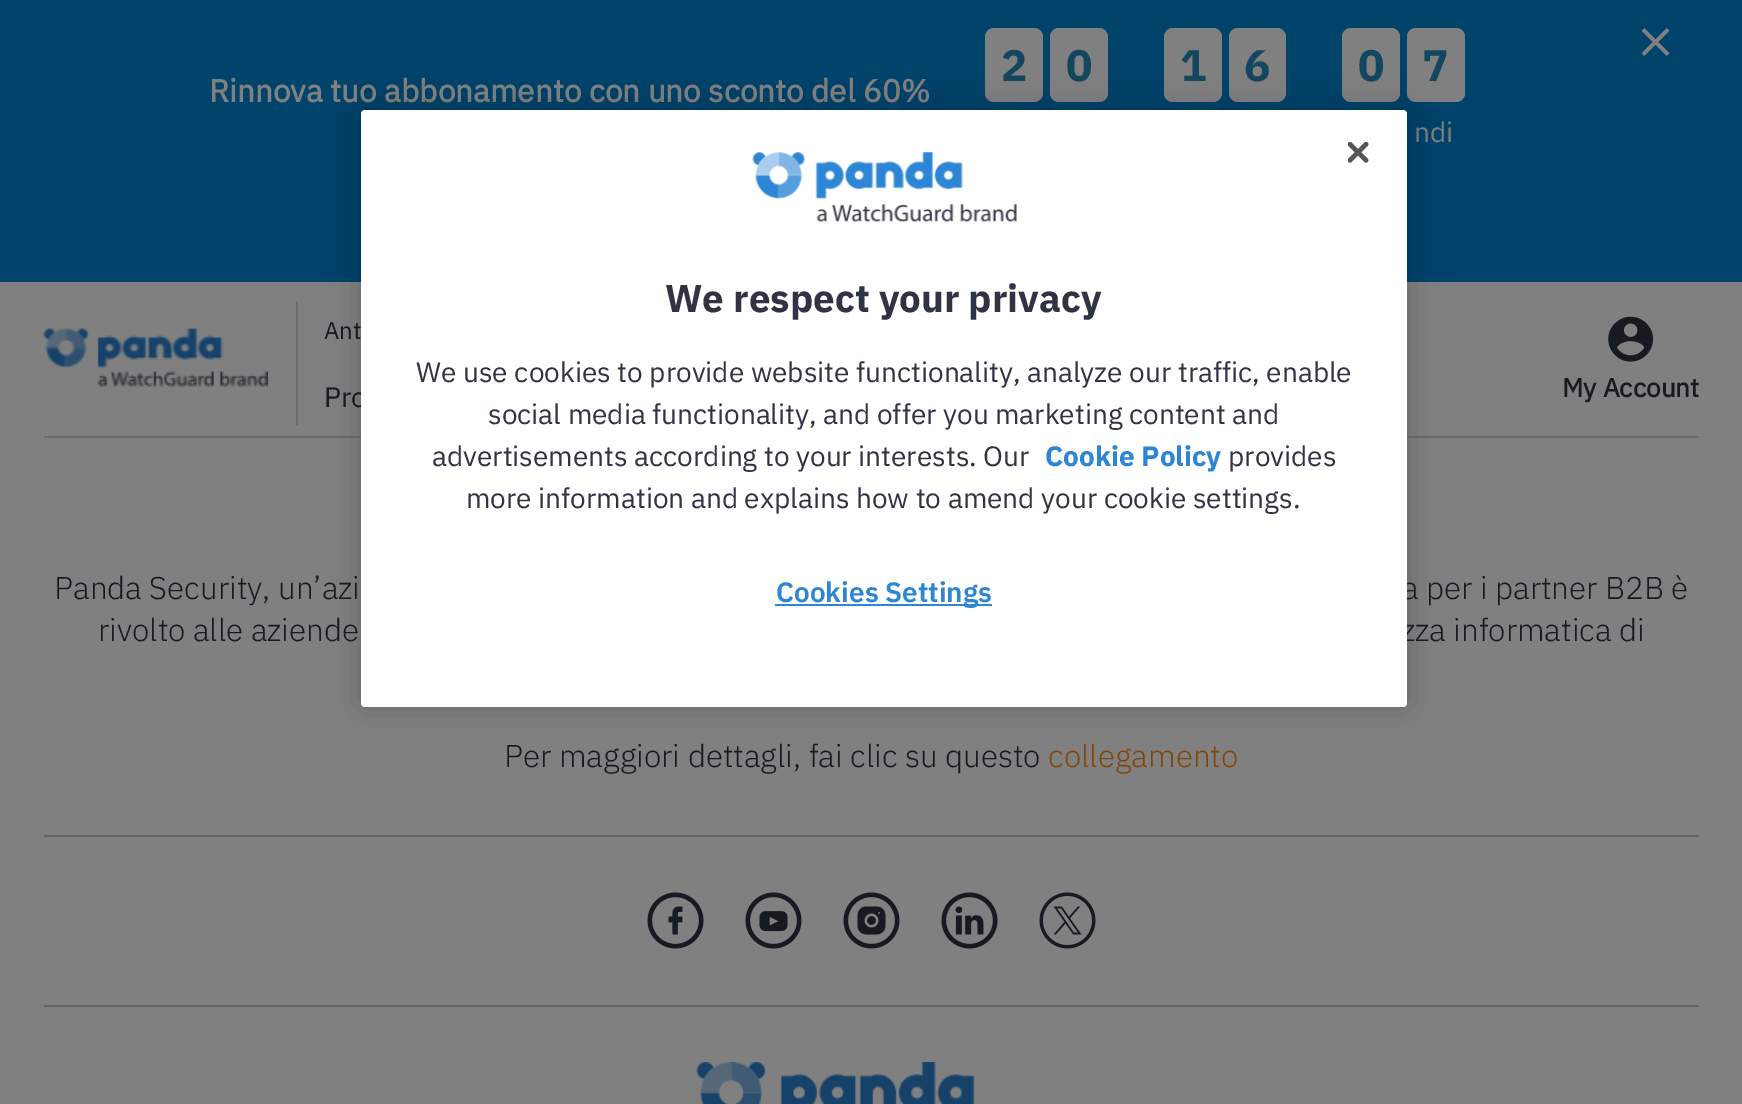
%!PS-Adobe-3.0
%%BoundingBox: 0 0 1742 1104
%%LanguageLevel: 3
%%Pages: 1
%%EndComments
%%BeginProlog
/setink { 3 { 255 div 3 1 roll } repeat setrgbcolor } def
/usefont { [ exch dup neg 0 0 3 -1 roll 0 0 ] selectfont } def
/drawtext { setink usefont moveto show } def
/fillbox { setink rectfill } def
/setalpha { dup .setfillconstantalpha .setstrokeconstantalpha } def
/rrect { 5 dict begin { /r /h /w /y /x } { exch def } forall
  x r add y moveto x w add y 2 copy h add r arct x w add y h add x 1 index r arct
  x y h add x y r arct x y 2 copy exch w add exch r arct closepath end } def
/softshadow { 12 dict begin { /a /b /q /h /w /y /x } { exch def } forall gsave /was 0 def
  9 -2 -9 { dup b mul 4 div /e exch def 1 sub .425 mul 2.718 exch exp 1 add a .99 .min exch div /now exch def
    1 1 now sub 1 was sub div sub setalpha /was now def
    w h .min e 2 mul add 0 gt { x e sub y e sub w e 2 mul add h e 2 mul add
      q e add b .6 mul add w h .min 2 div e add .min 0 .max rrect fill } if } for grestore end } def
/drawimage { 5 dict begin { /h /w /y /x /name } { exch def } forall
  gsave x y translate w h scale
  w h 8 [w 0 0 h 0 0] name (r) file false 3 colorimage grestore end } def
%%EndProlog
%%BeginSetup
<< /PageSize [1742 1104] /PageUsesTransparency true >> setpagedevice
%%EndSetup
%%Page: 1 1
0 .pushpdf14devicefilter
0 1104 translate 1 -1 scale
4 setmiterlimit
0 0 1742 1104 128 128 128 fillbox
0 0 1742 282 0 67 107 fillbox
(assets/img1.rgb) 1641 28 29 28 drawimage
(Rinnova tuo abbonamento con uno sconto del 60%) 209 102 /IBMPlexSans-Bold 31.5 128 128 128 drawtext
985 28 58 74 9 rrect fill
(2) 1001 81 /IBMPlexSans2-Bold 44 19 70 95 drawtext
128 128 128 setink
1050 28 58 74 9 rrect fill
(0) 1066 81 /IBMPlexSans2-Bold 44 19 70 95 drawtext
128 128 128 setink
1164 28 58 74 9 rrect fill
(1) 1180 81 /IBMPlexSans2-Bold 44 19 70 95 drawtext
128 128 128 setink
1229 28 57 74 9 rrect fill
(6) 1244 81 /IBMPlexSans2-Bold 44 19 70 95 drawtext
128 128 128 setink
1342 28 58 74 9 rrect fill
(0) 1358 81 /IBMPlexSans2-Bold 44 19 70 95 drawtext
128 128 128 setink
1407 28 58 74 9 rrect fill
(7) 1422 81 /IBMPlexSans2-Bold 44 19 70 95 drawtext
(ndi) 1414 142 /IBMPlexSans-Regular 28 128 128 128 drawtext
44 436 1655 2 108 108 108 fillbox
(assets/img2.rgb) 43 328 225 59 drawimage
296 301 2 124 108 108 108 fillbox
(Ant) 324 339 /IBMPlexSans-Regular 24 24 26 34 drawtext
(Pro) 324 407 /IBMPlexSans-Regular 28 24 26 34 drawtext
(assets/img3.rgb) 1608 316 46 46 drawimage
(My Account) 1562 397 /IBMPlexSans-Bold 26.25 24 26 34 drawtext
0 0 0 setink
361 110 1046 597 4 16 0.2 softshadow
(a per i partner B2B è) 1402 599 /IBMPlexSans-Light 31.5 24 26 34 drawtext
(zza informatica di) 1401 641 /IBMPlexSans-Light 31.5 24 26 34 drawtext
255 255 255 setink
361 110 1046 597 4 rrect fill
(assets/img4.rgb) 1348 142 21 21 drawimage
(assets/img5.rgb) 752 152 265 71 drawimage
(We respect your privacy) 665 312 /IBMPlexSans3-Bold 38.5 47 51 67 drawtext
(We use cookies to provide website functionality, analyze our traffic, enable) 416 382 /IBMPlexSans2-Regular 28 47 51 67 drawtext
(social media functionality, and offer you marketing content and) 488 424 /IBMPlexSans2-Regular 28 47 51 67 drawtext
(advertisements according to your interests. Our) 432 466 /IBMPlexSans2-Regular 28 47 51 67 drawtext
(Cookie Policy) 1045 466 /IBMPlexSans3-Bold 28 44 133 213 drawtext
(provides) 1228 466 /IBMPlexSans2-Regular 28 47 51 67 drawtext
(more information and explains how to amend your cookie settings.) 466 508 /IBMPlexSans2-Regular 28 47 51 67 drawtext
775 604 217 2 44 133 213 fillbox
(Cookies Settings) 776 602 /IBMPlexSans-SemiBold 28 44 133 213 drawtext
(Panda Security, un’azi) 54 599 /IBMPlexSans-Light 31.5 24 26 34 drawtext
(rivolto alle aziende) 98 641 /IBMPlexSans-Light 31.5 24 26 34 drawtext
(Per maggiori dettagli, fai clic su questo) 504 767 /IBMPlexSans-Light 31.5 24 26 34 drawtext
(collegamento) 1048 767 /IBMPlexSans-Light 31.5 128 72 8 drawtext
44 835 1655 2 98 98 98 fillbox
(assets/img6.rgb) 647 892 57 57 drawimage
(assets/img7.rgb) 745 892 57 57 drawimage
(assets/img8.rgb) 843 892 57 57 drawimage
(assets/img9.rgb) 941 892 57 57 drawimage
(assets/img10.rgb) 1039 892 57 57 drawimage
44 1005 1655 2 98 98 98 fillbox
(assets/img11.rgb) 696 1062 279 42 drawimage
.poppdf14devicefilter showpage
%%EOF
